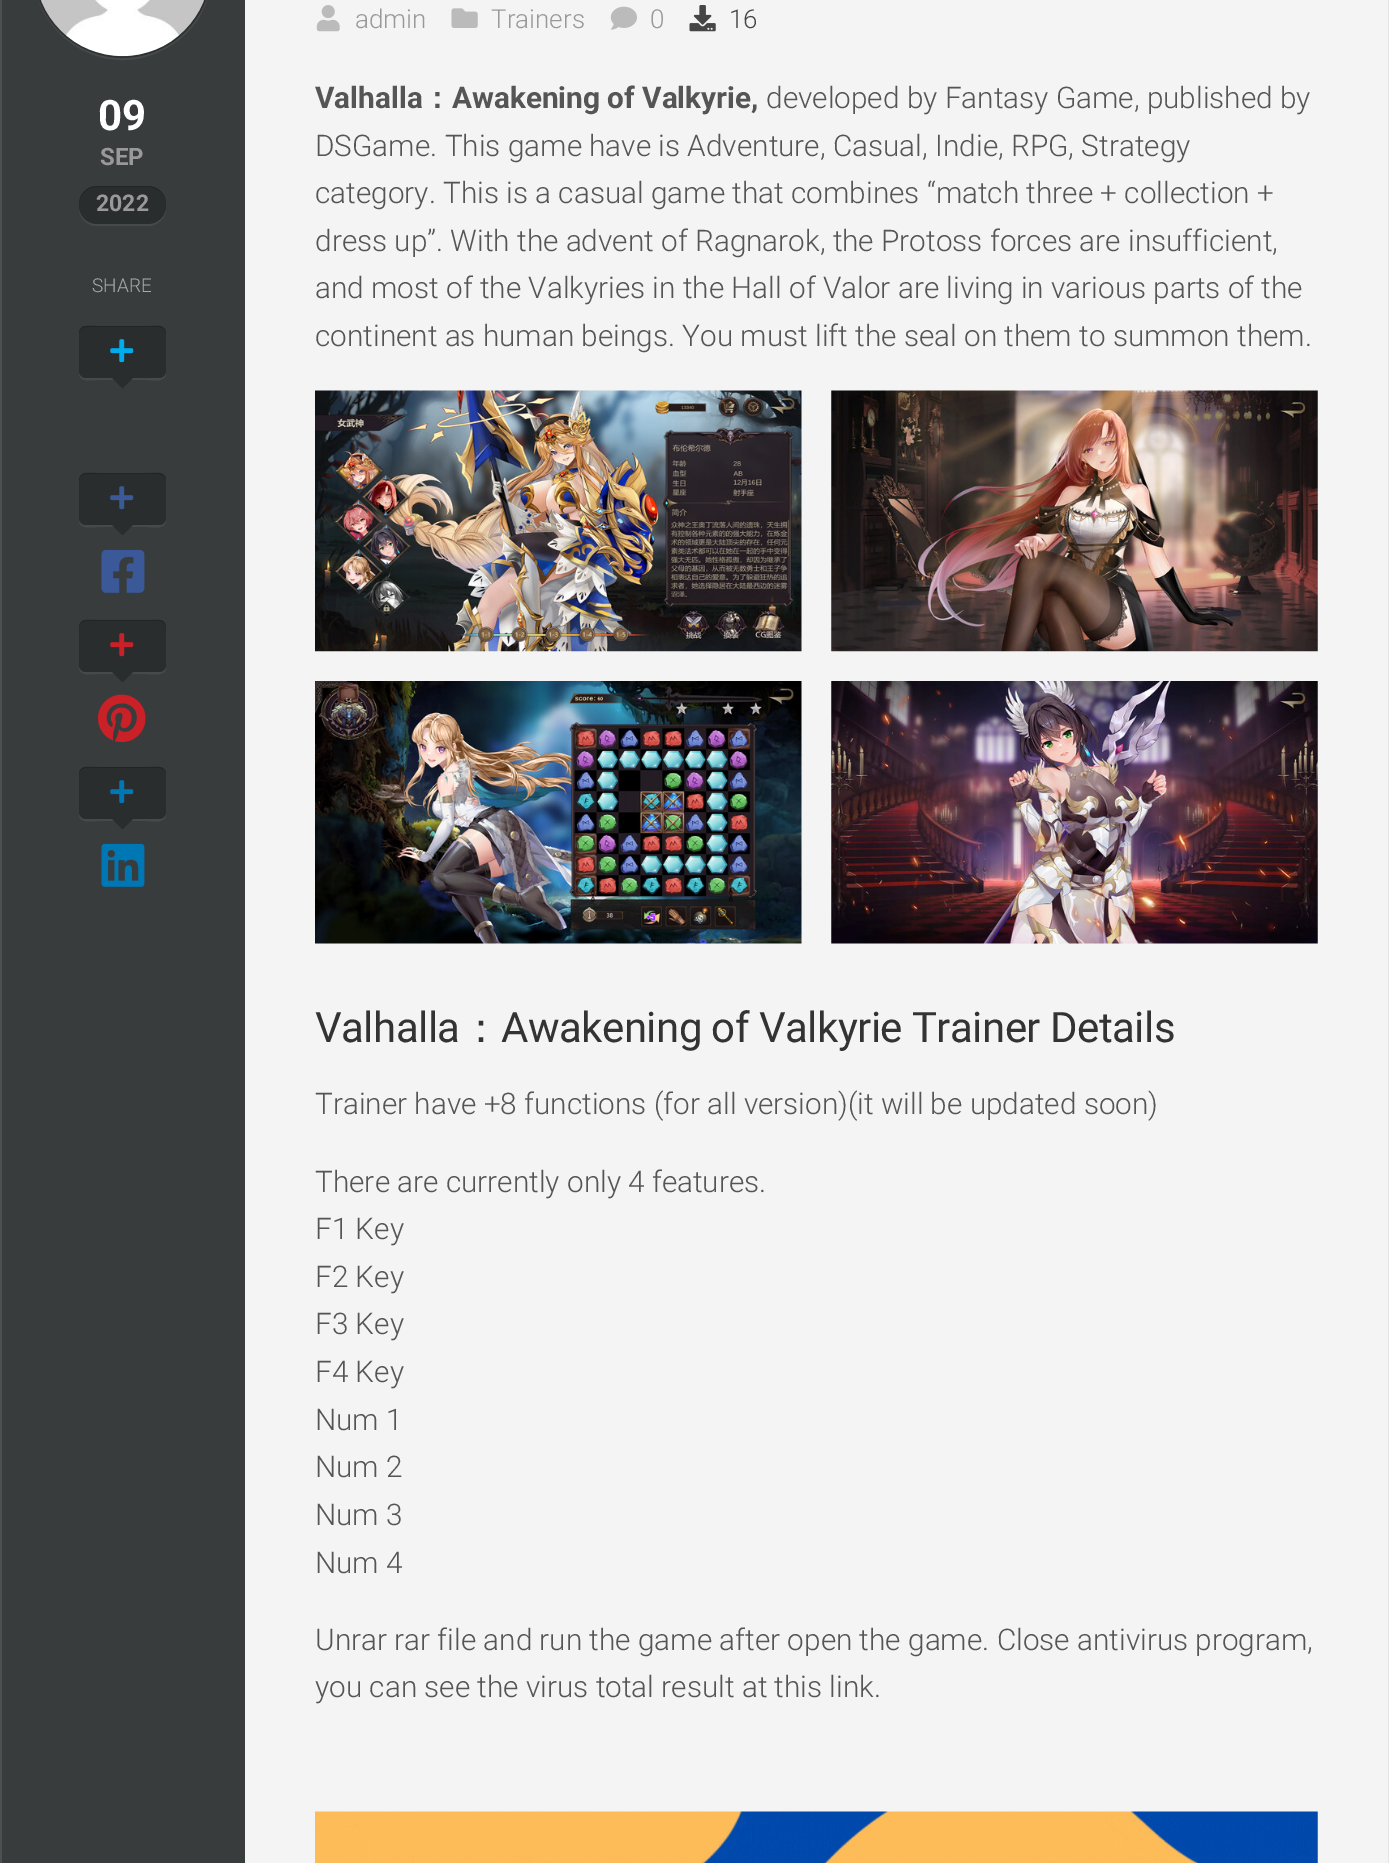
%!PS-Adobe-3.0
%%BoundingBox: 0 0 1389 1863
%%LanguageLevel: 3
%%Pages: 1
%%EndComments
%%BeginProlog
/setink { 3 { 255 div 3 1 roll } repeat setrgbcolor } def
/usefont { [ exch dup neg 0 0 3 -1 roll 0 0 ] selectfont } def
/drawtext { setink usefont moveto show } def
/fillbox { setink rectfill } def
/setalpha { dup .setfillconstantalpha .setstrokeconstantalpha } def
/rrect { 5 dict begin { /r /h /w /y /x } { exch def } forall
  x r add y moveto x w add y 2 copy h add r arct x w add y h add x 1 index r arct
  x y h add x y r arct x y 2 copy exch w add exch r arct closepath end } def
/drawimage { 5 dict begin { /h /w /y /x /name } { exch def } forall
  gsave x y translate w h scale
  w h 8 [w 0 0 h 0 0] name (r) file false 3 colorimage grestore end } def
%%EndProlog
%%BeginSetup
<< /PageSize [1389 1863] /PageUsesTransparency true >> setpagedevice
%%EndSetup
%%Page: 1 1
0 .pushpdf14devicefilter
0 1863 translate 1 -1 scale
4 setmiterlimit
0 0 1389 1863 244 244 244 fillbox
1388 0 1 1863 229 229 229 fillbox
2 0 243 1863 56 60 61 fillbox
0 0 2 1863 76 80 80 fillbox
(assets/img1.rgb) 316 5 24 27 drawimage
(admin) 355 28 /Roboto-Light 26 153 153 153 drawtext
(assets/img2.rgb) 451 8 27 20 drawimage
(Trainers) 491 28 /Roboto-Light 26 153 153 153 drawtext
(assets/img3.rgb) 610 6 27 24 drawimage
(0) 650 28 /Roboto-Light 26 153 153 153 drawtext
(assets/img4.rgb) 689 5 27 27 drawimage
(16) 729 28 /Roboto-Light 26 70 70 70 drawtext
70 74 75 setink
34 -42 moveto 25 26 93 80 157 53 curveto 173 46 187 35 197 21 curveto 209 2 214 -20 211 -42 curveto 214 -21 208 1 197 18 curveto 187 33 173 44 157 51 curveto 94 77 26 25 34 -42 curveto closepath fill
0.2 setalpha
0 0 0 setink
33 -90 179 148 89.5 rrect fill
1 setalpha
(assets/img5.rgb) 41 0 163 57 drawimage
(09) 98 130 /Roboto-Bold 42 255 255 255 drawtext
(SEP) 100 165 /Roboto-Bold 24 153 153 153 drawtext
70 74 75 setink
79 210 moveto 80 219 88 226 97 226 curveto 148 226 lineto 157 226 165 219 166 210 curveto 164 218 157 224 149 224 curveto 96 224 lineto 88 224 81 218 79 210 curveto closepath fill
0.25 setalpha
0 0 0 setink
79 186 87 38 18 rrect fill
0.2 setalpha
96 187 moveto 149 187 lineto 158 187 166 195 166 205 curveto 166 204 lineto 166 194 158 186 148 186 curveto 97 186 lineto 87 186 79 194 79 204 curveto 79 205 lineto 79 195 87 187 96 187 curveto closepath fill
1 setalpha
(2022) 96 211 /Roboto-Bold 23 153 153 153 drawtext
(Valhalla) 315 108 /Roboto-Bold 29.75 85 85 85 drawtext
(：) 422 108 /WenQuanYiZenHei-Bold 29.75 85 85 85 drawtext
(Awakening of Valkyrie,) 452 108 /Roboto-Bold 29.75 85 85 85 drawtext
(developed by Fantasy Game, published by) 766 108 /Roboto-Light 29.75 85 85 85 drawtext
(DSGame. This game have is Adventure, Casual, Indie, RPG, Strategy) 315 156 /Roboto-Light 29.75 85 85 85 drawtext
(category. This is a casual game that combines “match three + collection +) 315 203 /Roboto-Light 29.75 85 85 85 drawtext
(dress up”. With the advent of Ragnarok, the Protoss forces are insufficient,) 315 251 /Roboto-Light 29.75 85 85 85 drawtext
(and most of the Valkyries in the Hall of Valor are living in various parts of the) 315 298 /Roboto-Light 29.75 85 85 85 drawtext
(continent as human beings. You must lift the seal on them to summon them.) 315 346 /Roboto-Light 29.75 85 85 85 drawtext
(assets/img6.rgb) 315 390 487 262 drawimage
(assets/img7.rgb) 831 390 487 262 drawimage
(assets/img8.rgb) 315 681 487 263 drawimage
(assets/img9.rgb) 831 681 487 263 drawimage
/Roboto-Regular 42 usefont
51 51 51 setink
315 1042 moveto -0.55 0 (Valhalla) ashow
/WenQuanYiZenHei-Medium 42 usefont
460 1042 moveto -0.55 0 (：) ashow
/Roboto-Regular 42 usefont
501 1042 moveto -0.55 0 (Awakening of Valkyrie Trainer Details) ashow
(Trainer have +8 functions \(for all version\)\(it will be updated soon\)) 315 1114 /Roboto-Light 29.75 85 85 85 drawtext
(There are currently only 4 features.) 315 1192 /Roboto-Light 29.75 85 85 85 drawtext
(F1 Key) 315 1239 /Roboto-Light 29.75 85 85 85 drawtext
(F2 Key) 315 1287 /Roboto-Light 29.75 85 85 85 drawtext
(F3 Key) 315 1334 /Roboto-Light 29.75 85 85 85 drawtext
(F4 Key) 315 1382 /Roboto-Light 29.75 85 85 85 drawtext
(Num 1) 315 1430 /Roboto-Light 29.75 85 85 85 drawtext
(Num 2) 315 1477 /Roboto-Light 29.75 85 85 85 drawtext
(Num 3) 315 1525 /Roboto-Light 29.75 85 85 85 drawtext
(Num 4) 315 1573 /Roboto-Light 29.75 85 85 85 drawtext
(Unrar rar file and run the game after open the game. Close antivirus program,) 315 1650 /Roboto-Light 29.75 85 85 85 drawtext
(you can see the virus total result at this link.) 315 1697 /Roboto-Light 29.75 85 85 85 drawtext
(SHARE) 92 292 /Roboto-Light 19 170 170 170 drawtext
70 74 75 setink
79 373 moveto 79 383 93 380 98 380 curveto 147 380 lineto 152 380 166 383 166 373 curveto 165 376 162 378 159 378 curveto 86 378 lineto 83 378 80 376 79 373 curveto closepath fill
42 45 46 setink
79 326 87 52 7 rrect fill
0.2 setalpha
0 0 0 setink
86 327 moveto 159 327 lineto 163 327 166 330 166 334 curveto 166 323 154 326 147 326 curveto 98 326 lineto 91 326 79 323 79 334 curveto 79 330 82 327 86 327 curveto closepath fill
1 setalpha
(assets/img10.rgb) 110 339 24 24 drawimage
42 45 46 setink
112 378 moveto 133 378 lineto 122.5 388.5 lineto closepath fill
70 74 75 setink
79 520 moveto 79 530 93 527 98 527 curveto 147 527 lineto 152 527 166 530 166 520 curveto 165 523 162 525 159 525 curveto 86 525 lineto 83 525 80 523 79 520 curveto closepath fill
42 45 46 setink
79 473 87 52 7 rrect fill
0.2 setalpha
0 0 0 setink
86 474 moveto 159 474 lineto 163 474 166 477 166 481 curveto 166 470 154 473 147 473 curveto 98 473 lineto 91 473 79 470 79 481 curveto 79 477 82 474 86 474 curveto closepath fill
1 setalpha
(assets/img11.rgb) 110 486 24 24 drawimage
42 45 46 setink
112 525 moveto 133 525 lineto 122.5 535.5 lineto closepath fill
(assets/img12.rgb) 101 549 44 44 drawimage
70 74 75 setink
79 667 moveto 79 677 93 674 98 674 curveto 147 674 lineto 152 674 166 677 166 667 curveto 165 670 162 672 159 672 curveto 86 672 lineto 83 672 80 670 79 667 curveto closepath fill
42 45 46 setink
79 620 87 52 7 rrect fill
0.2 setalpha
0 0 0 setink
86 621 moveto 159 621 lineto 163 621 166 624 166 628 curveto 166 617 154 620 147 620 curveto 98 620 lineto 91 620 79 617 79 628 curveto 79 624 82 621 86 621 curveto closepath fill
1 setalpha
(assets/img13.rgb) 110 633 24 24 drawimage
42 45 46 setink
112 672 moveto 133 672 lineto 122.5 682.5 lineto closepath fill
(assets/img14.rgb) 98 694 48 49 drawimage
70 74 75 setink
79 814 moveto 79 824 93 821 98 821 curveto 147 821 lineto 152 821 166 824 166 814 curveto 165 817 162 819 159 819 curveto 86 819 lineto 83 819 80 817 79 814 curveto closepath fill
42 45 46 setink
79 767 87 52 7 rrect fill
0.2 setalpha
0 0 0 setink
86 768 moveto 159 768 lineto 163 768 166 771 166 775 curveto 166 764 154 767 147 767 curveto 98 767 lineto 91 767 79 764 79 775 curveto 79 771 82 768 86 768 curveto closepath fill
1 setalpha
(assets/img15.rgb) 110 780 24 24 drawimage
42 45 46 setink
112 819 moveto 133 819 lineto 122.5 829.5 lineto closepath fill
(assets/img16.rgb) 101 843 44 44 drawimage
(assets/img17.rgb) 315 1811 1003 52 drawimage
.poppdf14devicefilter showpage
%%EOF
